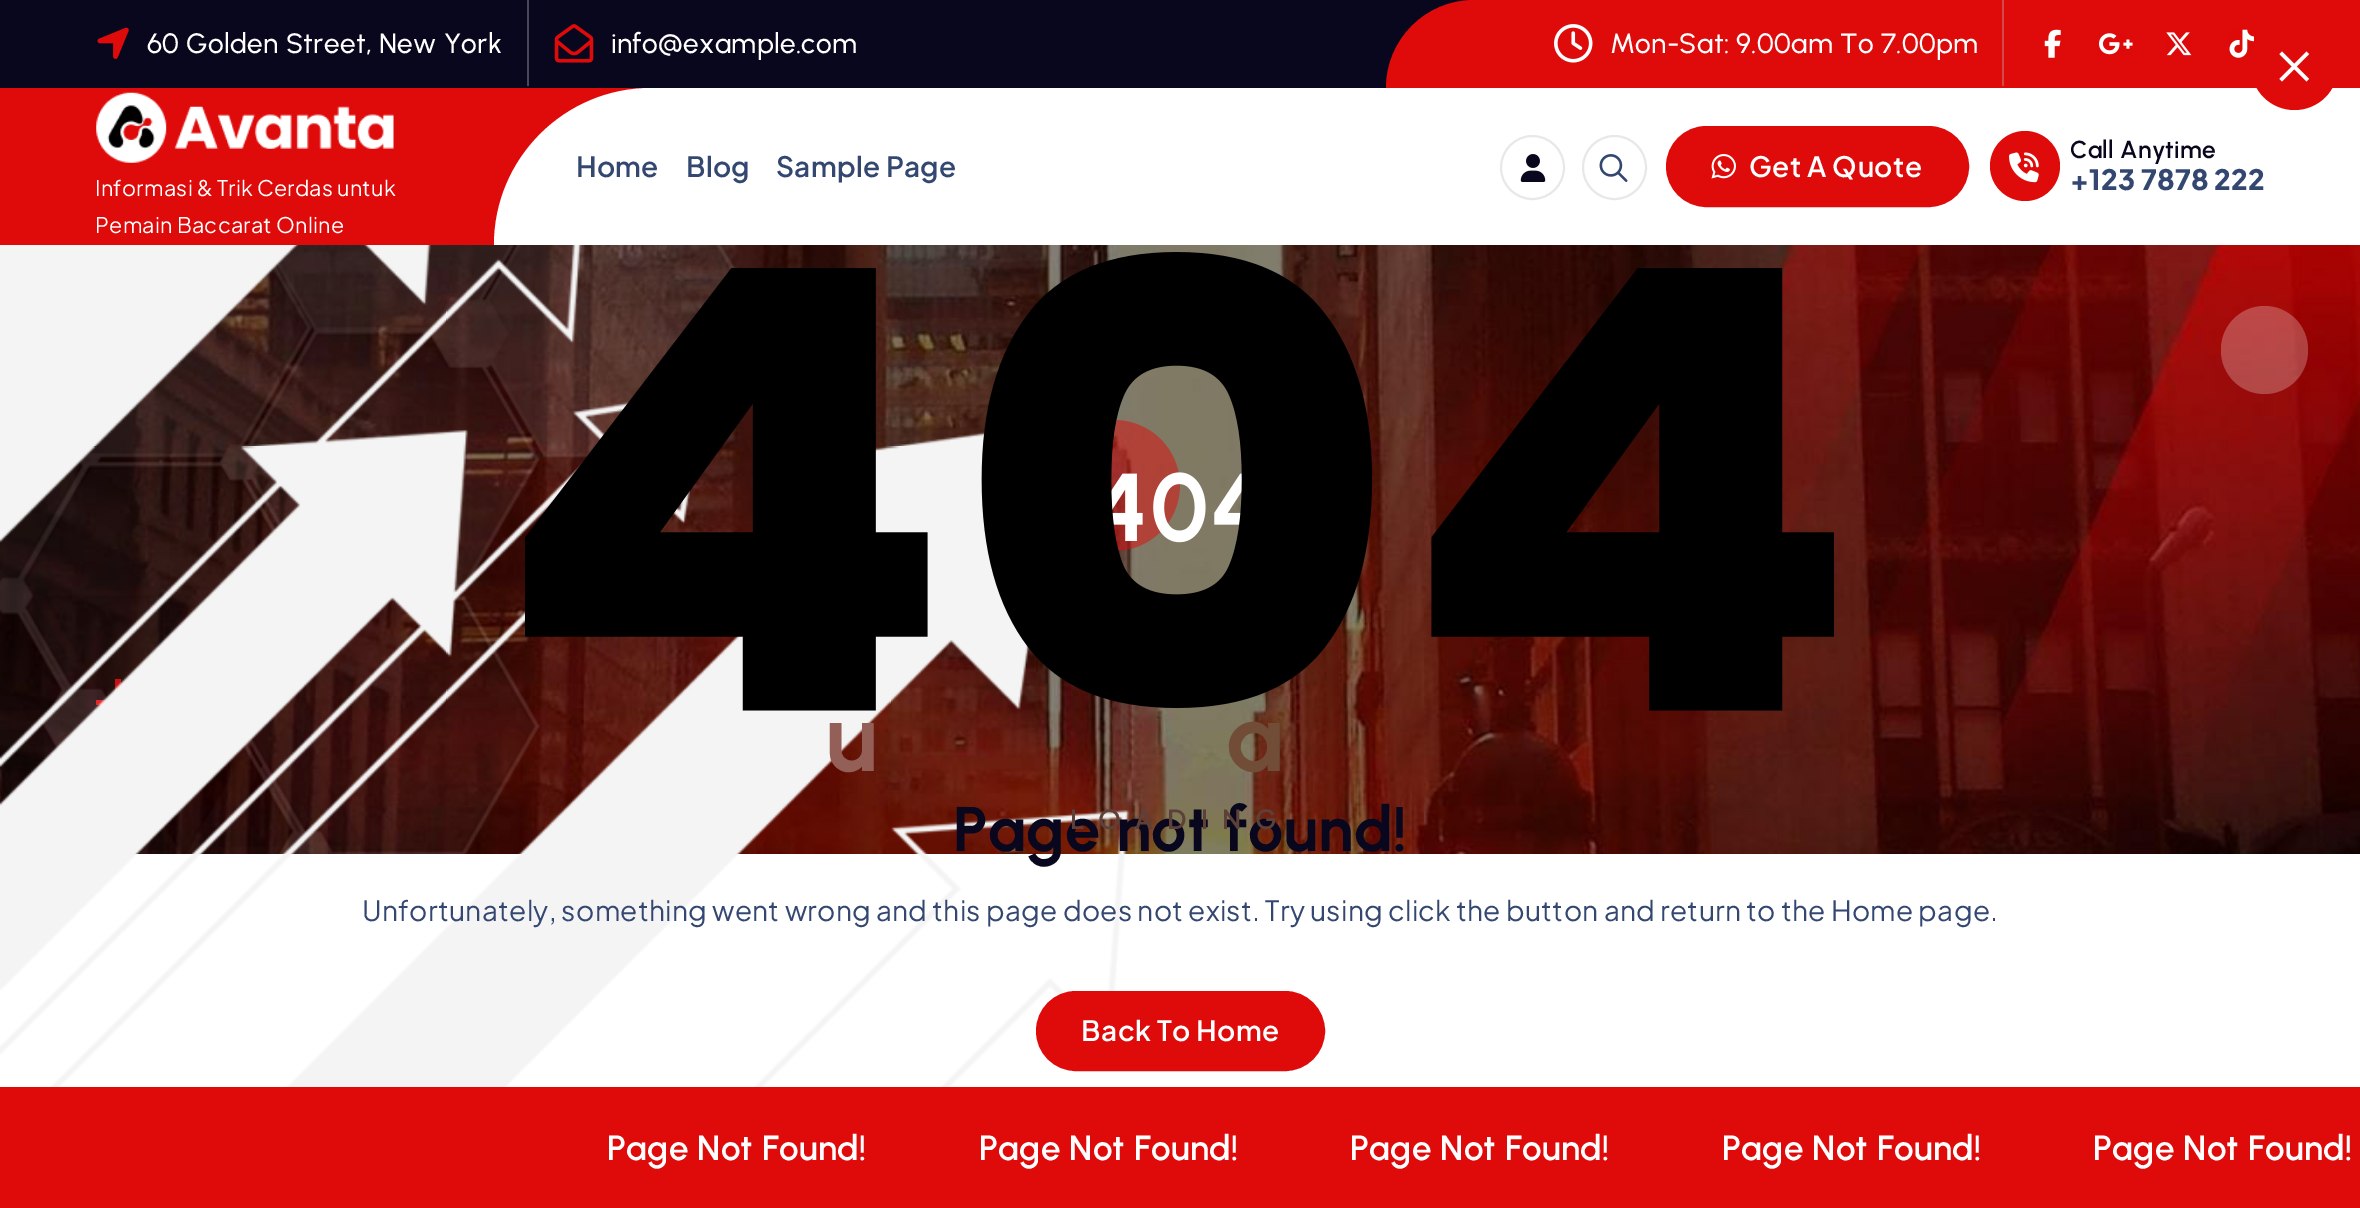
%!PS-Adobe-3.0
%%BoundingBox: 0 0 2360 1208
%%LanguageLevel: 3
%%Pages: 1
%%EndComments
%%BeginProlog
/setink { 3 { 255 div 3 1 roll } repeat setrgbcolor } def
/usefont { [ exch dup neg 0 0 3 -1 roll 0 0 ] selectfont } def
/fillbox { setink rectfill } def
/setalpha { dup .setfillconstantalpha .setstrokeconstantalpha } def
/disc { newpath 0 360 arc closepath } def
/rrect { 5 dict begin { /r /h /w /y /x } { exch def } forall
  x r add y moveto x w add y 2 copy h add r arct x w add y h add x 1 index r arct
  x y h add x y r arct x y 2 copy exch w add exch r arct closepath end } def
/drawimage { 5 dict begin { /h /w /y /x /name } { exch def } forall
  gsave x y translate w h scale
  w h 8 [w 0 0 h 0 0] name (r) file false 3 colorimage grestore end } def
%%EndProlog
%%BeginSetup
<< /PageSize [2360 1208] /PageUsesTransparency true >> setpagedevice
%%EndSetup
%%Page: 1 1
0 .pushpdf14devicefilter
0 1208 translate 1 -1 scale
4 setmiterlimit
0 0 2360 1208 255 255 255 fillbox
0 0 1473 88 9 7 29 fillbox
(assets/img1.rgb) 97 27 32 32 drawimage
/Urbanist-Medium 28 usefont
255 255 255 setink
147 53 moveto 0.28 0 (60 Golden Street, New York) ashow
527 0 2 86 72 71 85 fillbox
(assets/img2.rgb) 554 24 40 39 drawimage
255 255 255 setink
611 53 moveto 0.28 0 (info@example.com) ashow
223 10 10 setink
1474 0 moveto 2265 0 lineto 2265 88 lineto 1386 88 lineto 1386 39.5 1425.5 0 1474 0 curveto closepath fill
(assets/img3.rgb) 1554 24 39 39 drawimage
255 255 255 setink
1610 53 moveto 0.28 0 (Mon-Sat: 9.00am To 7.00pm) ashow
2002 0 2 86 211 73 73 fillbox
(assets/img4.rgb) 2044 29 17 29 drawimage
(assets/img5.rgb) 2099 33 34 22 drawimage
(assets/img6.rgb) 2166 32 26 24 drawimage
(assets/img7.rgb) 2229 29 25 29 drawimage
2265 0 95 88 223 10 10 fillbox
0 88 650 157 223 10 10 fillbox
255 255 255 setink
651 88 moveto 2265 88 lineto 2265 245 lineto 494 245 lineto 494 158.5 564.5 88 651 88 curveto closepath fill
/PlusJakartaSans-SemiBold 28 usefont
51 71 112 setink
576 177 moveto 0.28 0 (Home) ashow
686 177 moveto 0.28 0 (Blog) ashow
776 177 moveto 0.28 0 (Sample Page) ashow
(assets/img8.rgb) 1520 154 26 28 drawimage
232 232 232 setink
2 setlinewidth
1532.5 167.5 31.5 disc stroke
(assets/img9.rgb) 1599 154 29 28 drawimage
1614.5 167.5 31.5 disc stroke
223 10 10 setink
1667 127 301 79 39.5 rrect gsave fill grestore
stroke
(assets/img10.rgb) 1711 154 25 25 drawimage
255 255 255 setink
1749 177 moveto 0.5 0 (Get A Quote) ashow
223 10 10 setink
2025 166 35 disc fill
(assets/img11.rgb) 2009 152 30 31 drawimage
/Urbanist-SemiBold 24.5 usefont
9 7 29 setink
2070 158 moveto 0.28 0 (Call Anytime) ashow
/PlusJakartaSans-ExtraBold 28 usefont
51 71 112 setink
2070 190 moveto 0.28 0 (+123 7878 222) ashow
(assets/img12.rgb) 96 92 298 71 drawimage
/PlusJakartaSans-Regular 21.5 usefont
255 255 255 setink
95 196 moveto 0.28 0 (Informasi & Trik Cerdas untuk) ashow
95 233 moveto 0.28 0 (Pemain Baccarat Online) ashow
(assets/img13.rgb) 0 245 2360 609 drawimage
115 679 6 13 223 10 10 fillbox
96 700 12 5 223 10 10 fillbox
(assets/img14.rgb) 0 245 735 609 drawimage
0.25 setalpha
255 255 255 setink
2221 306 87 88 43.5 rrect fill
0.5 setalpha
223 10 10 setink
1048 420 132 131 65.5 rrect fill
/Urbanist-Bold 96 usefont
1 setalpha
255 255 255 setink
1093 541 moveto 2 0 (40) ashow
223 10 10 setink
2294.5 66.5 43.5 disc fill
255 255 255 setink
2279.5 79 moveto 2306.5 51.5 lineto 2309 54 lineto 2282 81.5 lineto closepath fill
2306.5 81.5 moveto 2279.5 54 lineto 2282 51.5 lineto 2309 79 lineto closepath fill
(assets/img15.rgb) 0 245 1130 842 drawimage
148 95 86 setink
826 771 moveto 0.28 0 (u) ashow
113 76 54 setink
1226 771 moveto 0.28 0 (a) ashow
/Urbanist-Bold 63 usefont
9 7 29 setink
953 851 moveto 0.28 0 (Page not found!) ashow
/PlusJakartaSans-SemiBold 26.25 usefont
93 65 56 setink
1070 829 moveto 14 0 (LOADING) ashow
(assets/img16.rgb) 525 252 1309 459 drawimage
/PlusJakartaSans-Regular 28 usefont
51 71 112 setink
362 921 moveto 0.28 0 (Unfortunately, something went wrong and this page does not exist. Try using click the button and return to the Home page.) ashow
223 10 10 setink
1037 992 287 78 39 rrect gsave fill grestore
stroke
/PlusJakartaSans-SemiBold 28 usefont
255 255 255 setink
1081 1041 moveto 0.5 0 (Back To Home) ashow
0 1087 2360 121 223 10 10 fillbox
/Urbanist-SemiBold 35 usefont
255 255 255 setink
607 1160 moveto 0.28 0 (Page Not Found!) ashow
979 1160 moveto 0.28 0 (Page Not Found!) ashow
1350 1160 moveto 0.28 0 (Page Not Found!) ashow
1722 1160 moveto 0.28 0 (Page Not Found!) ashow
2093 1160 moveto 0.28 0 (Page Not Found!) ashow
.poppdf14devicefilter showpage
%%EOF
